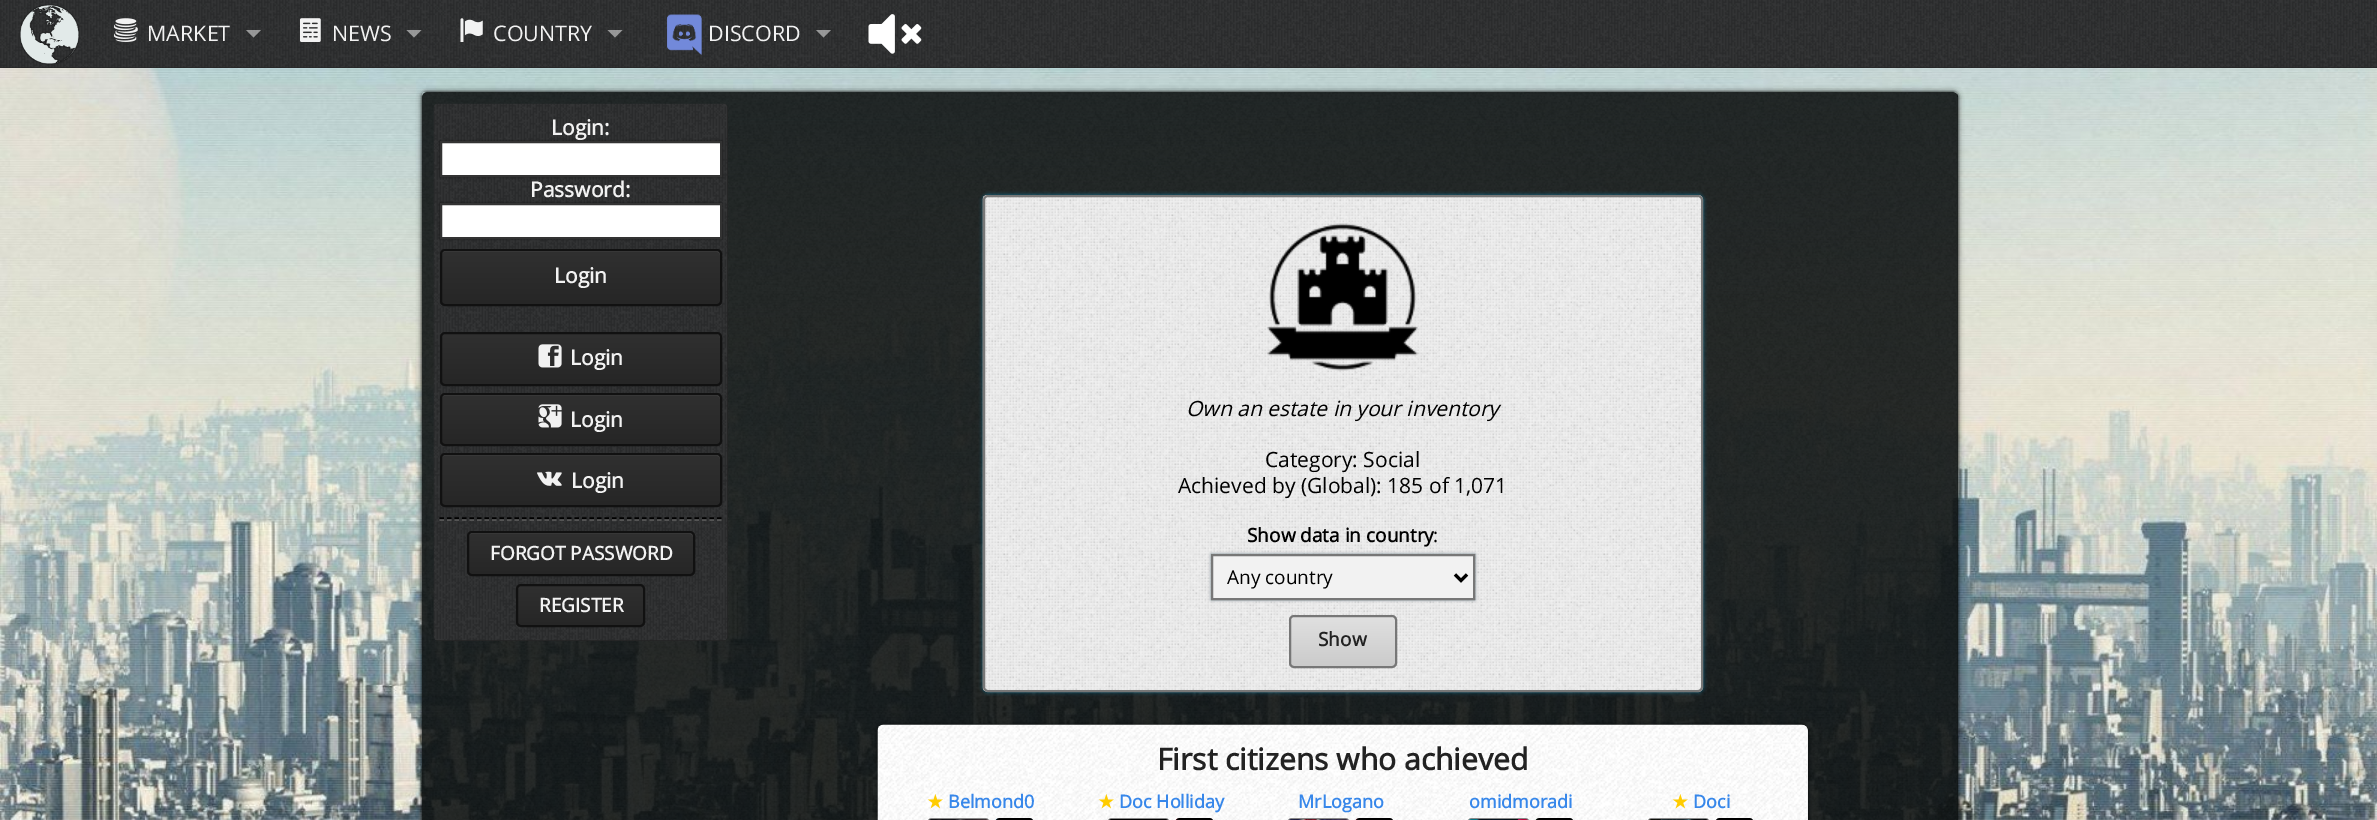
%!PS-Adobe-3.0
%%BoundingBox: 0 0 2377 820
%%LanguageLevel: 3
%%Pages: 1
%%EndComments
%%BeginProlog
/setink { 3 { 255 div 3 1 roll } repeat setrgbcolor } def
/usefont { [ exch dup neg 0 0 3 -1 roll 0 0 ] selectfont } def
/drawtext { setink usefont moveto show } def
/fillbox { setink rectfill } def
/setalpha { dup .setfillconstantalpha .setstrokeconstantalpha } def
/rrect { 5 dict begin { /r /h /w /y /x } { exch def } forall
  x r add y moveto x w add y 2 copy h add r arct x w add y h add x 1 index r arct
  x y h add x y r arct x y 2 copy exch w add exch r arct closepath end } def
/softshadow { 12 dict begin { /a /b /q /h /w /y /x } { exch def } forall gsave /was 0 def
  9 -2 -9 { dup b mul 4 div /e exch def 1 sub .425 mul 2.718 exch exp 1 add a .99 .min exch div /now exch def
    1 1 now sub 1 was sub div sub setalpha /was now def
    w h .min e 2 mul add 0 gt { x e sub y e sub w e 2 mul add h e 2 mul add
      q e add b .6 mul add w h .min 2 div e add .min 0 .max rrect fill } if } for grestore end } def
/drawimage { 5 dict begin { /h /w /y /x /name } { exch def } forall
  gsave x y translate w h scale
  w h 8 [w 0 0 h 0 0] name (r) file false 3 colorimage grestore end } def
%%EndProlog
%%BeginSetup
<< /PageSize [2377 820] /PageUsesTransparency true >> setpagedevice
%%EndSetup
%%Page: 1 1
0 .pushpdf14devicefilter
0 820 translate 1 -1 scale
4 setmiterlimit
0 0 2377 820 255 255 255 fillbox
(assets/img1.rgb) 0 68 2377 752 drawimage
gsave
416 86 moveto 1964 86 lineto 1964 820 lineto 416 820 lineto closepath 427 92 moveto 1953 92 lineto 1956 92 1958 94 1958 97 curveto 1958 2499 lineto 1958 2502 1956 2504 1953 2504 curveto 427 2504 lineto 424 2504 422 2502 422 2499 curveto 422 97 lineto 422 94 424 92 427 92 curveto closepath eoclip newpath
0 0 0 setink
422 92 1536 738 5 1.5 0.6 softshadow
grestore
gsave
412 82 moveto 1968 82 lineto 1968 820 lineto 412 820 lineto closepath 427 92 moveto 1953 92 lineto 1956 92 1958 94 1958 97 curveto 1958 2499 lineto 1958 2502 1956 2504 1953 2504 curveto 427 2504 lineto 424 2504 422 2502 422 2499 curveto 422 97 lineto 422 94 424 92 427 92 curveto closepath eoclip newpath
0 0 0 setink
422 92 1536 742 5 3 0.6 softshadow
grestore
0.9 setalpha
12 16 16 setink
422 92 1536 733 5 rrect fill
1 setalpha
(assets/img2.rgb) 422 92 1535 728 drawimage
0 67 2377 1 34 34 34 fillbox
(assets/img3.rgb) 0 0 2377 68 drawimage
(assets/img4.rgb) 19 4 61 61 drawimage
(assets/img5.rgb) 114 18 24 24 drawimage
(MARKET) 147 41 /OpenSans-Regular 21.5 242 242 242 drawtext
0.5 setalpha
255 255 255 setink
246 30 moveto 261 30 lineto 253.5 37.5 lineto closepath fill
1 setalpha
(assets/img6.rgb) 300 18 21 24 drawimage
(NEWS) 332 41 /OpenSans-Regular 21.5 242 242 242 drawtext
0.5 setalpha
255 255 255 setink
406.5 30 moveto 421.5 30 lineto 414 37.5 lineto closepath fill
1 setalpha
(assets/img7.rgb) 460 18 23 24 drawimage
(COUNTRY) 493 41 /OpenSans-Regular 21.5 242 242 242 drawtext
0.5 setalpha
255 255 255 setink
607.5 30 moveto 622.5 30 lineto 615 37.5 lineto closepath fill
1 setalpha
(assets/img8.rgb) 666 14 36 41 drawimage
(DISCORD) 708 41 /OpenSans-Regular 21.5 242 242 242 drawtext
0.5 setalpha
255 255 255 setink
816 30 moveto 831 30 lineto 823.5 37.5 lineto closepath fill
1 setalpha
(assets/img9.rgb) 868 14 54 40 drawimage
34 34 34 setink
434 104 294 537 5 rrect fill
(assets/img10.rgb) 433 103 295 538 drawimage
(Login:) 551 135 /OpenSans-Bold 21 242 242 242 drawtext
0 0 0 setink
440 141 282 36 0 1 0.6 softshadow
255 255 255 setink
441 142 moveto 721 142 lineto 721 176 lineto 441 176 lineto closepath gsave fill grestore
51 51 51 setink
2 setlinewidth
stroke
(Password:) 530 197 /OpenSans-Bold 21 242 242 242 drawtext
0 0 0 setink
440 203 282 36 0 1 0.6 softshadow
255 255 255 setink
441 204 moveto 721 204 lineto 721 238 lineto 441 238 lineto closepath gsave fill grestore
51 51 51 setink
stroke
gsave
440 249 282 57 5 rrect clip newpath
gsave 440 251 moveto 722 251 lineto 722 305 lineto 440 305 lineto closepath clip newpath
<< /ShadingType 2 /ColorSpace /DeviceRGB /Coords [581 251 581 305] /Extend [true true] /Function << /FunctionType 2 /Domain [0 1] /C0 [0.188 0.188 0.188] /C1 [0.149 0.149 0.149] /N 1 >> >> shfill grestore
grestore
69 69 69 setink
444 252 moveto 717 252 lineto 719 252 720 253 720 255 curveto 720 254 lineto 720 252 719 251 717 251 curveto 444 251 lineto 442 251 441 252 441 254 curveto 441 255 lineto 441 253 442 252 444 252 curveto closepath fill
17 17 17 setink
441 250 280 55 4 rrect stroke
(Login) 554 283 /OpenSans-Bold 21 242 242 242 drawtext
gsave
440 332 282 54 5 rrect clip newpath
gsave 440 333 moveto 722 333 lineto 722 384 lineto 440 384 lineto closepath clip newpath
<< /ShadingType 2 /ColorSpace /DeviceRGB /Coords [581 333 581 384] /Extend [true true] /Function << /FunctionType 2 /Domain [0 1] /C0 [0.188 0.188 0.188] /C1 [0.149 0.149 0.149] /N 1 >> >> shfill grestore
grestore
69 69 69 setink
444 334 moveto 717 334 lineto 719 334 720 336 720 338 curveto 720 336 lineto 720 334 719 333 717 333 curveto 444 333 lineto 442 333 441 334 441 336 curveto 441 338 lineto 441 336 442 334 444 334 curveto closepath fill
17 17 17 setink
441 333 280 52 4 rrect stroke
(assets/img11.rgb) 538 344 24 24 drawimage
(Login) 570 365 /OpenSans-Bold 21 242 242 242 drawtext
gsave
440 393 282 53 5 rrect clip newpath
gsave 440 395 moveto 722 395 lineto 722 444 lineto 440 444 lineto closepath clip newpath
<< /ShadingType 2 /ColorSpace /DeviceRGB /Coords [581 395 581 444] /Extend [true true] /Function << /FunctionType 2 /Domain [0 1] /C0 [0.188 0.188 0.188] /C1 [0.149 0.149 0.149] /N 1 >> >> shfill grestore
grestore
69 69 69 setink
444 396 moveto 717 396 lineto 719 396 720 397 720 399 curveto 720 398 lineto 720 396 719 395 717 395 curveto 444 395 lineto 442 395 441 396 441 398 curveto 441 399 lineto 441 397 442 396 444 396 curveto closepath fill
17 17 17 setink
441 394 280 51 4 rrect stroke
(assets/img12.rgb) 538 404 24 24 drawimage
(Login) 570 427 /OpenSans-Bold 21 242 242 242 drawtext
gsave
440 453 282 54 5 rrect clip newpath
gsave 440 455 moveto 722 455 lineto 722 506 lineto 440 506 lineto closepath clip newpath
<< /ShadingType 2 /ColorSpace /DeviceRGB /Coords [581 455 581 506] /Extend [true true] /Function << /FunctionType 2 /Domain [0 1] /C0 [0.188 0.188 0.188] /C1 [0.149 0.149 0.149] /N 1 >> >> shfill grestore
grestore
69 69 69 setink
444 456 moveto 717 456 lineto 719 456 720 457 720 459 curveto 720 458 lineto 720 456 719 455 717 455 curveto 444 455 lineto 442 455 441 456 441 458 curveto 441 459 lineto 441 457 442 456 444 456 curveto closepath fill
17 17 17 setink
441 454 280 52 4 rrect stroke
(assets/img13.rgb) 537 471 25 15 drawimage
(Login) 571 488 /OpenSans-Bold 21 242 242 242 drawtext
0 0 0 setink
1.5 setlinewidth
[4.5 3] 0 setdash
439.5 518 moveto 721.5 518 lineto stroke
85 85 85 setink
439.5 520 moveto 721.5 520 lineto stroke
gsave
467 531 228 45 5 rrect clip newpath
gsave 467 533 moveto 695 533 lineto 695 575 lineto 467 575 lineto closepath clip newpath
<< /ShadingType 2 /ColorSpace /DeviceRGB /Coords [581 533 581 575] /Extend [true true] /Function << /FunctionType 2 /Domain [0 1] /C0 [0.188 0.188 0.188] /C1 [0.149 0.149 0.149] /N 1 >> >> shfill grestore
grestore
69 69 69 setink
471 534 moveto 690 534 lineto 692 534 693 535 693 537 curveto 693 536 lineto 693 534 692 533 690 533 curveto 471 533 lineto 469 533 468 534 468 536 curveto 468 537 lineto 468 535 469 534 471 534 curveto closepath fill
17 17 17 setink
2 setlinewidth
[] 0 setdash
468 532 226 43 4 rrect stroke
(FORGOT PASSWORD) 490 560 /OpenSans-Bold 19 242 242 242 drawtext
gsave
516 584 129 43 5 rrect clip newpath
gsave 516 585 moveto 645 585 lineto 645 626 lineto 516 626 lineto closepath clip newpath
<< /ShadingType 2 /ColorSpace /DeviceRGB /Coords [581 585 581 626] /Extend [true true] /Function << /FunctionType 2 /Domain [0 1] /C0 [0.188 0.188 0.188] /C1 [0.149 0.149 0.149] /N 1 >> >> shfill grestore
grestore
17 17 17 setink
517 585 127 41 4 rrect stroke
(REGISTER) 539 612 /OpenSans-Bold 19 242 242 242 drawtext
0 187 255 setink
983 195 720 497 5 2 0.5 softshadow
(assets/img14.rgb) 982 195 721 497 drawimage
119 119 119 setink
984 196 718 495 4 rrect stroke
(assets/img15.rgb) 1267 223 151 148 drawimage
(Own an estate in your inventory) 1186 416 /OpenSans-Italic 21 0 0 0 drawtext
(Category: Social) 1265 467 /OpenSans-Regular 21 0 0 0 drawtext
(Achieved by \(Global\): 185 of 1,071) 1178 493 /OpenSans-Regular 21 0 0 0 drawtext
(Show data in country) 1247 542 /OpenSans-Bold 19 0 0 0 drawtext
(:) 1433 542 /OpenSans-Regular 19 0 0 0 drawtext
107 128 135 setink
1211 554 264 46 0 1.5 0.9 softshadow
242 242 242 setink
1212 555 moveto 1474 555 lineto 1474 599 lineto 1212 599 lineto closepath gsave fill grestore
119 119 119 setink
stroke
0 0 0 setink
3 setlinewidth
1455 574.5 moveto 1461 580.5 lineto 1467 574.5 lineto stroke
(Any country) 1227 584 /OpenSans-Regular 19 0 0 0 drawtext
gsave
1289 615 108 53 5 rrect clip newpath
gsave 1289 617 moveto 1397 617 lineto 1397 666 lineto 1289 666 lineto closepath clip newpath
<< /ShadingType 2 /ColorSpace /DeviceRGB /Coords [1343 617 1343 666] /Extend [true true] /Function << /FunctionType 2 /Domain [0 1] /C0 [0.878 0.878 0.878] /C1 [0.796 0.796 0.796] /N 1 >> >> shfill grestore
grestore
0.1 setalpha
255 255 255 setink
1293 618 moveto 1392 618 lineto 1394 618 1395 619 1395 621 curveto 1395 613 1378 617 1376 617 curveto 1310 617 lineto 1307 617 1290 613 1290 621 curveto 1290 619 1291 618 1293 618 curveto closepath fill
1 setalpha
119 119 119 setink
2 setlinewidth
1290 616 106 51 4 rrect stroke
(Show) 1318 646 /OpenSans-Bold 19 34 34 34 drawtext
0 0 0 setink
878 725 930 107 6 2 0.7 softshadow
242 242 242 setink
878 725 930 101 6 rrect fill
(assets/img16.rgb) 877 724 931 96 drawimage
(First citizens who achieved) 1157 770 /OpenSans-Bold 30 34 34 34 drawtext
(★) 927 808 /DejaVuSans-Bold 18 255 204 0 drawtext
(Belmond0) 948 808 /OpenSans-Bold 18 55 135 234 drawtext
136 136 136 setink
928 819 61 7 4 rrect stroke
(assets/img17.rgb) 929 819 59 1 drawimage
(assets/img18.rgb) 995 818 38 2 drawimage
0 0 0 setink
996 819 37 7 4 rrect stroke
(★) 1098 808 /DejaVuSans-Bold 18 255 204 0 drawtext
(Doc Holliday) 1119 808 /OpenSans-Bold 18 55 135 234 drawtext
136 136 136 setink
1108 819 61 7 4 rrect stroke
(assets/img19.rgb) 1109 819 59 1 drawimage
(assets/img20.rgb) 1175 818 38 2 drawimage
0 0 0 setink
1176 819 37 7 4 rrect stroke
(MrLogano) 1298 808 /OpenSans-Bold 18 55 135 234 drawtext
136 136 136 setink
1288 819 61 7 4 rrect stroke
(assets/img21.rgb) 1289 819 59 1 drawimage
(assets/img22.rgb) 1355 818 37 2 drawimage
0 0 0 setink
1356 819 37 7 4 rrect stroke
(omidmoradi) 1469 808 /OpenSans-Bold 18 55 135 234 drawtext
136 136 136 setink
1468 819 61 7 4 rrect stroke
(assets/img23.rgb) 1469 819 59 1 drawimage
(assets/img24.rgb) 1535 818 38 2 drawimage
0 0 0 setink
1536 819 37 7 4 rrect stroke
(★) 1672 808 /DejaVuSans-Bold 18 255 204 0 drawtext
(Doci) 1693 808 /OpenSans-Bold 18 55 135 234 drawtext
136 136 136 setink
1648 819 61 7 4 rrect stroke
(assets/img25.rgb) 1649 819 59 1 drawimage
(assets/img26.rgb) 1716 819 1 1 drawimage
0 0 0 setink
1716 819 37 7 4 rrect stroke
.poppdf14devicefilter showpage
%%EOF
